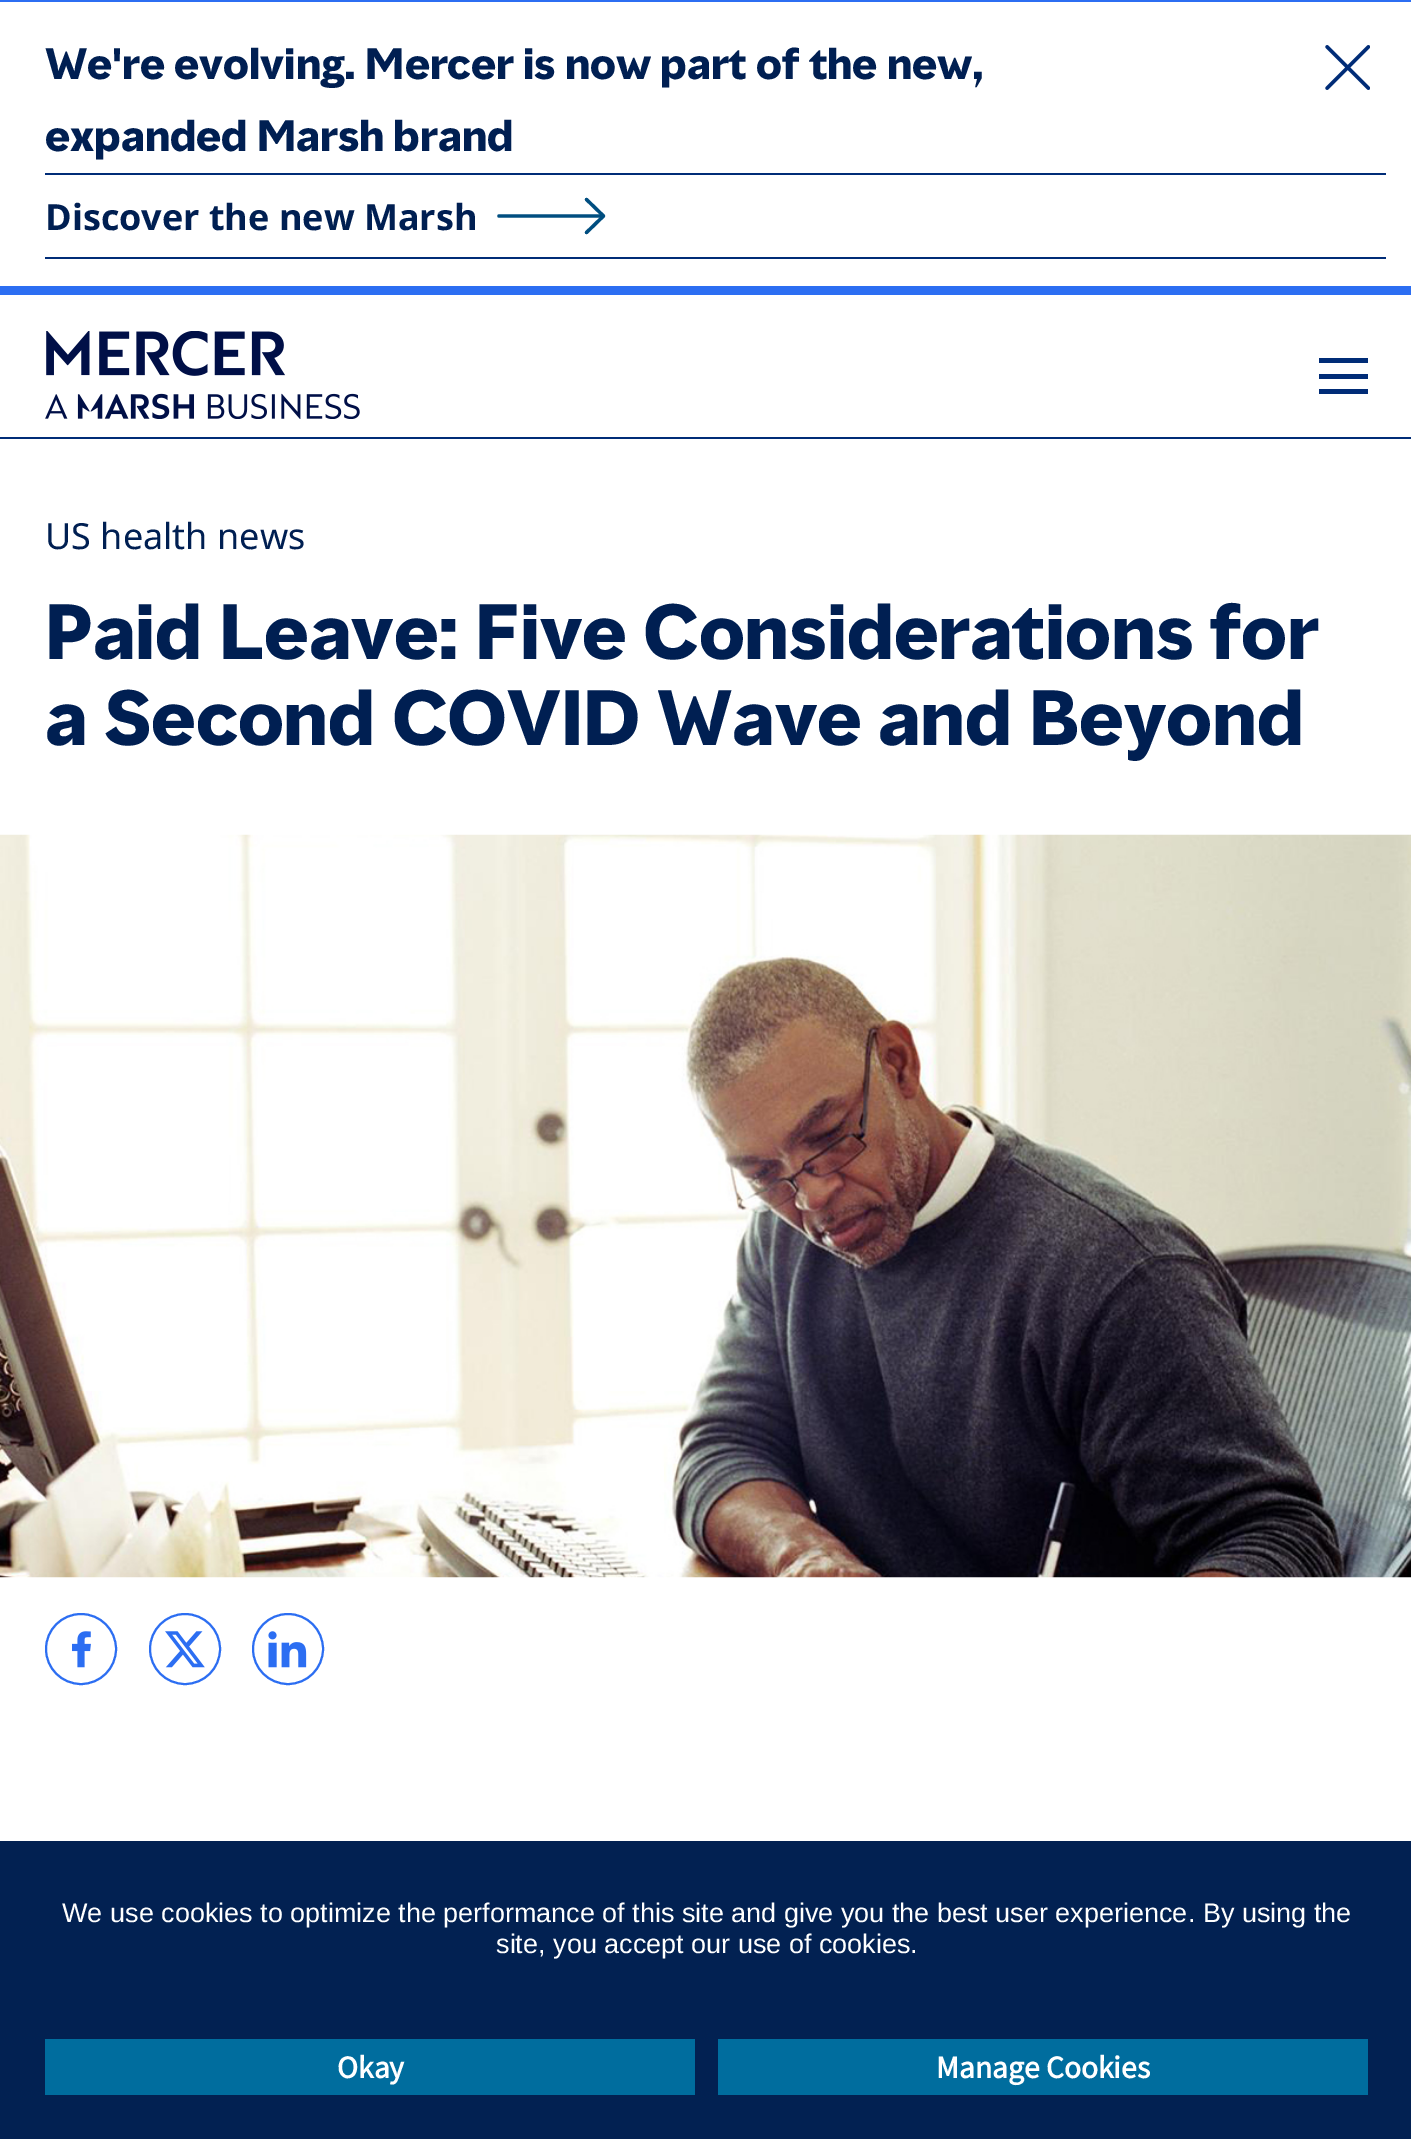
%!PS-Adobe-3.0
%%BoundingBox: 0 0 1411 2139
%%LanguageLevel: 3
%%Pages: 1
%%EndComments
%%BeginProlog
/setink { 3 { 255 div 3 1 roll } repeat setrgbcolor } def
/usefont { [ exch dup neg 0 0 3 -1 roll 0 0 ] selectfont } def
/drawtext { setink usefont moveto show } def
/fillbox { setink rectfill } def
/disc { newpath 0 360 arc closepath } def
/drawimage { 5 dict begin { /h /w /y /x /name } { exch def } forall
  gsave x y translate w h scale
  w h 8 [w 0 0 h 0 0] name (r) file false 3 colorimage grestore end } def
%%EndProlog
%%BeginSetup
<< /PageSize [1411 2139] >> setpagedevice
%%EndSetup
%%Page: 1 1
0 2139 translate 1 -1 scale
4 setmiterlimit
0 0 1411 2139 255 255 255 fillbox
0 0 1411 2 44 110 242 fillbox
0 286 1411 9 44 110 242 fillbox
(We're evolving. Mercer is now part of the new,) 45 79 /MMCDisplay-Bold 40.5 0 31 82 drawtext
(expanded Marsh brand) 45 151 /MMCDisplay-Bold 40.5 0 31 82 drawtext
(assets/img1.rgb) 1325 45 45 45 drawimage
45 173 1341 2 0 44 119 fillbox
45 257 1341 2 0 44 119 fillbox
(Discover the new Marsh) 45 230 /NotoSans-Bold 36 0 31 82 drawtext
0 78 128 setink
3.3 setlinewidth
1 setlinecap
499 216 moveto 600.5 216 lineto stroke
1 setlinejoin
586.5 199.5 moveto 603.5 216 lineto 586.5 232.5 lineto stroke
0 437 1411 2 0 44 119 fillbox
(assets/img2.rgb) 45 331 315 88 drawimage
1319 374 49 5 0 44 119 fillbox
1319 358 49 5 0 44 119 fillbox
1319 389 49 5 0 44 119 fillbox
(US health news) 45 549 /NotoSans-Regular 36 0 31 82 drawtext
(Paid Leave: Five Considerations for) 45 659 /MMCDisplay-Bold 72 0 31 82 drawtext
(a Second COVID Wave and Beyond) 45 745 /MMCDisplay-Bold 72 0 31 82 drawtext
(assets/img3.rgb) 0 834 1411 744 drawimage
(assets/img4.rgb) 72 1631 19 37 drawimage
44 110 242 setink
2 setlinewidth
0 setlinecap
0 setlinejoin
81 1649 35 disc stroke
(assets/img5.rgb) 165 1631 40 37 drawimage
185 1649 35 disc stroke
(assets/img6.rgb) 268 1631 39 37 drawimage
288 1649 35 disc stroke
0 1841 1411 298 2 33 82 fillbox
(We use cookies to optimize the performance of this site and give you the best user experience. By using the) 62 1922 /LiberationSans-Regular 27 255 255 255 drawtext
(site, you accept our use of cookies.) 496 1953 /LiberationSans-Regular 27 255 255 255 drawtext
45 2039 650 56 0 109 158 fillbox
(Okay) 337 2078 /SourceSansPro-Bold 31.5 255 255 255 drawtext
718 2039 650 56 0 109 158 fillbox
(Manage Cookies) 936 2078 /SourceSansPro-Bold 31.5 255 255 255 drawtext
showpage
%%EOF
